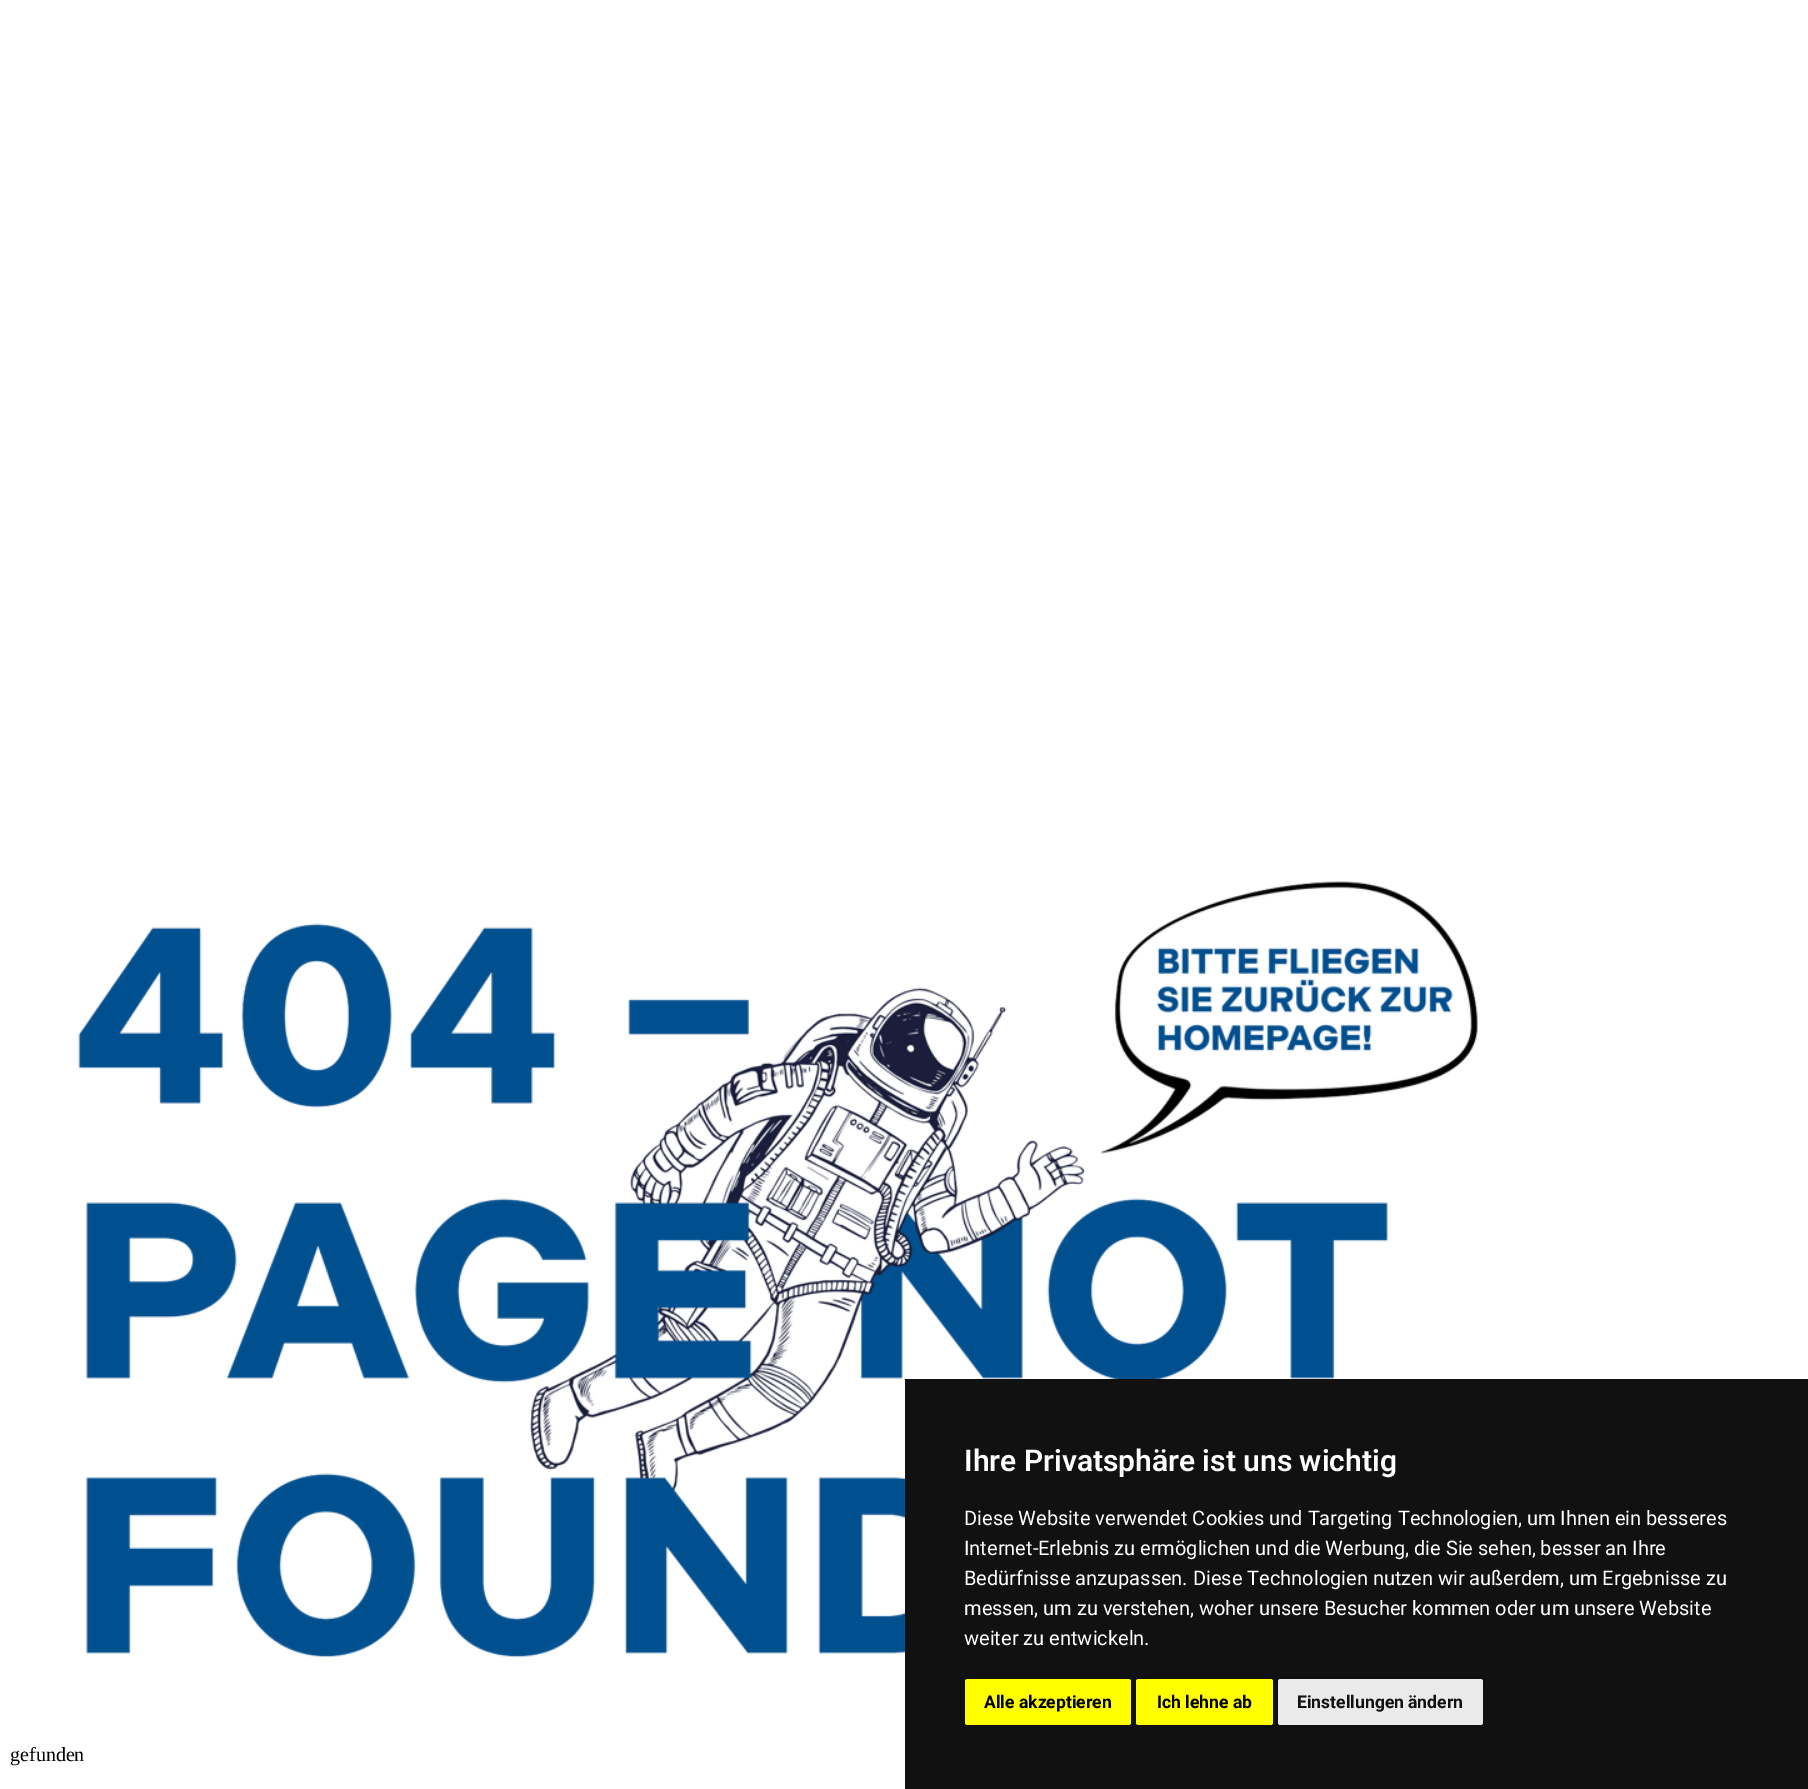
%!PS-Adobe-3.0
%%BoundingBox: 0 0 1808 1789
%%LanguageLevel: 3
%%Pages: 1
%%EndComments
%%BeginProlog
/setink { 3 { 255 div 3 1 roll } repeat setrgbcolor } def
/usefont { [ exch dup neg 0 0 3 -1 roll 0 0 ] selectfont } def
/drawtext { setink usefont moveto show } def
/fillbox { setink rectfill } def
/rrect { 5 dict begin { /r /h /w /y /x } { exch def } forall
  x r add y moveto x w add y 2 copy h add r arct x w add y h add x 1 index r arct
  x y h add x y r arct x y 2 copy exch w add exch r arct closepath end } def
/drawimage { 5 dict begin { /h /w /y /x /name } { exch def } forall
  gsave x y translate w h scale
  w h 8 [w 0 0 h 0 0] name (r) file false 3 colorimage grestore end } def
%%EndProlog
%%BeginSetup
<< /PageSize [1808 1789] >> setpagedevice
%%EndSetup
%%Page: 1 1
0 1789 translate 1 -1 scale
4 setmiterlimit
0 0 1808 1789 255 255 255 fillbox
(assets/img1.rgb) 78 881 1400 777 drawimage
905 1379 903 410 17 17 17 fillbox
(Ihre Privatsphäre ist uns wichtig) 964 1471 /Roboto-SemiBold 30 255 255 255 drawtext
(Diese Website verwendet Cookies und Targeting Technologien, um Ihnen ein besseres) 964 1525 /Roboto-Regular 20 255 255 255 drawtext
(Internet-Erlebnis zu ermöglichen und die Werbung, die Sie sehen, besser an Ihre) 964 1555 /Roboto-Regular 20 255 255 255 drawtext
(Bedürfnisse anzupassen. Diese Technologien nutzen wir außerdem, um Ergebnisse zu) 964 1585 /Roboto-Regular 20 255 255 255 drawtext
(messen, um zu verstehen, woher unsere Besucher kommen oder um unsere Website) 964 1615 /Roboto-Regular 20 255 255 255 drawtext
(weiter zu entwickeln.) 964 1645 /Roboto-Regular 20 255 255 255 drawtext
255 255 0 setink
965 1679 166 46 2.5 rrect fill
(Alle akzeptieren) 984 1708 /Roboto-Bold 17.5 0 0 0 drawtext
255 255 0 setink
1136 1679 137 46 2.5 rrect fill
(Ich lehne ab) 1157 1708 /Roboto-Bold 17.5 0 0 0 drawtext
234 234 234 setink
1278 1679 205 46 2.5 rrect fill
(Einstellungen ändern) 1297 1708 /Roboto-Bold 17.5 17 17 17 drawtext
(gefunden) 10 1761 /LiberationSerif-Regular 20 0 0 0 drawtext
showpage
%%EOF
